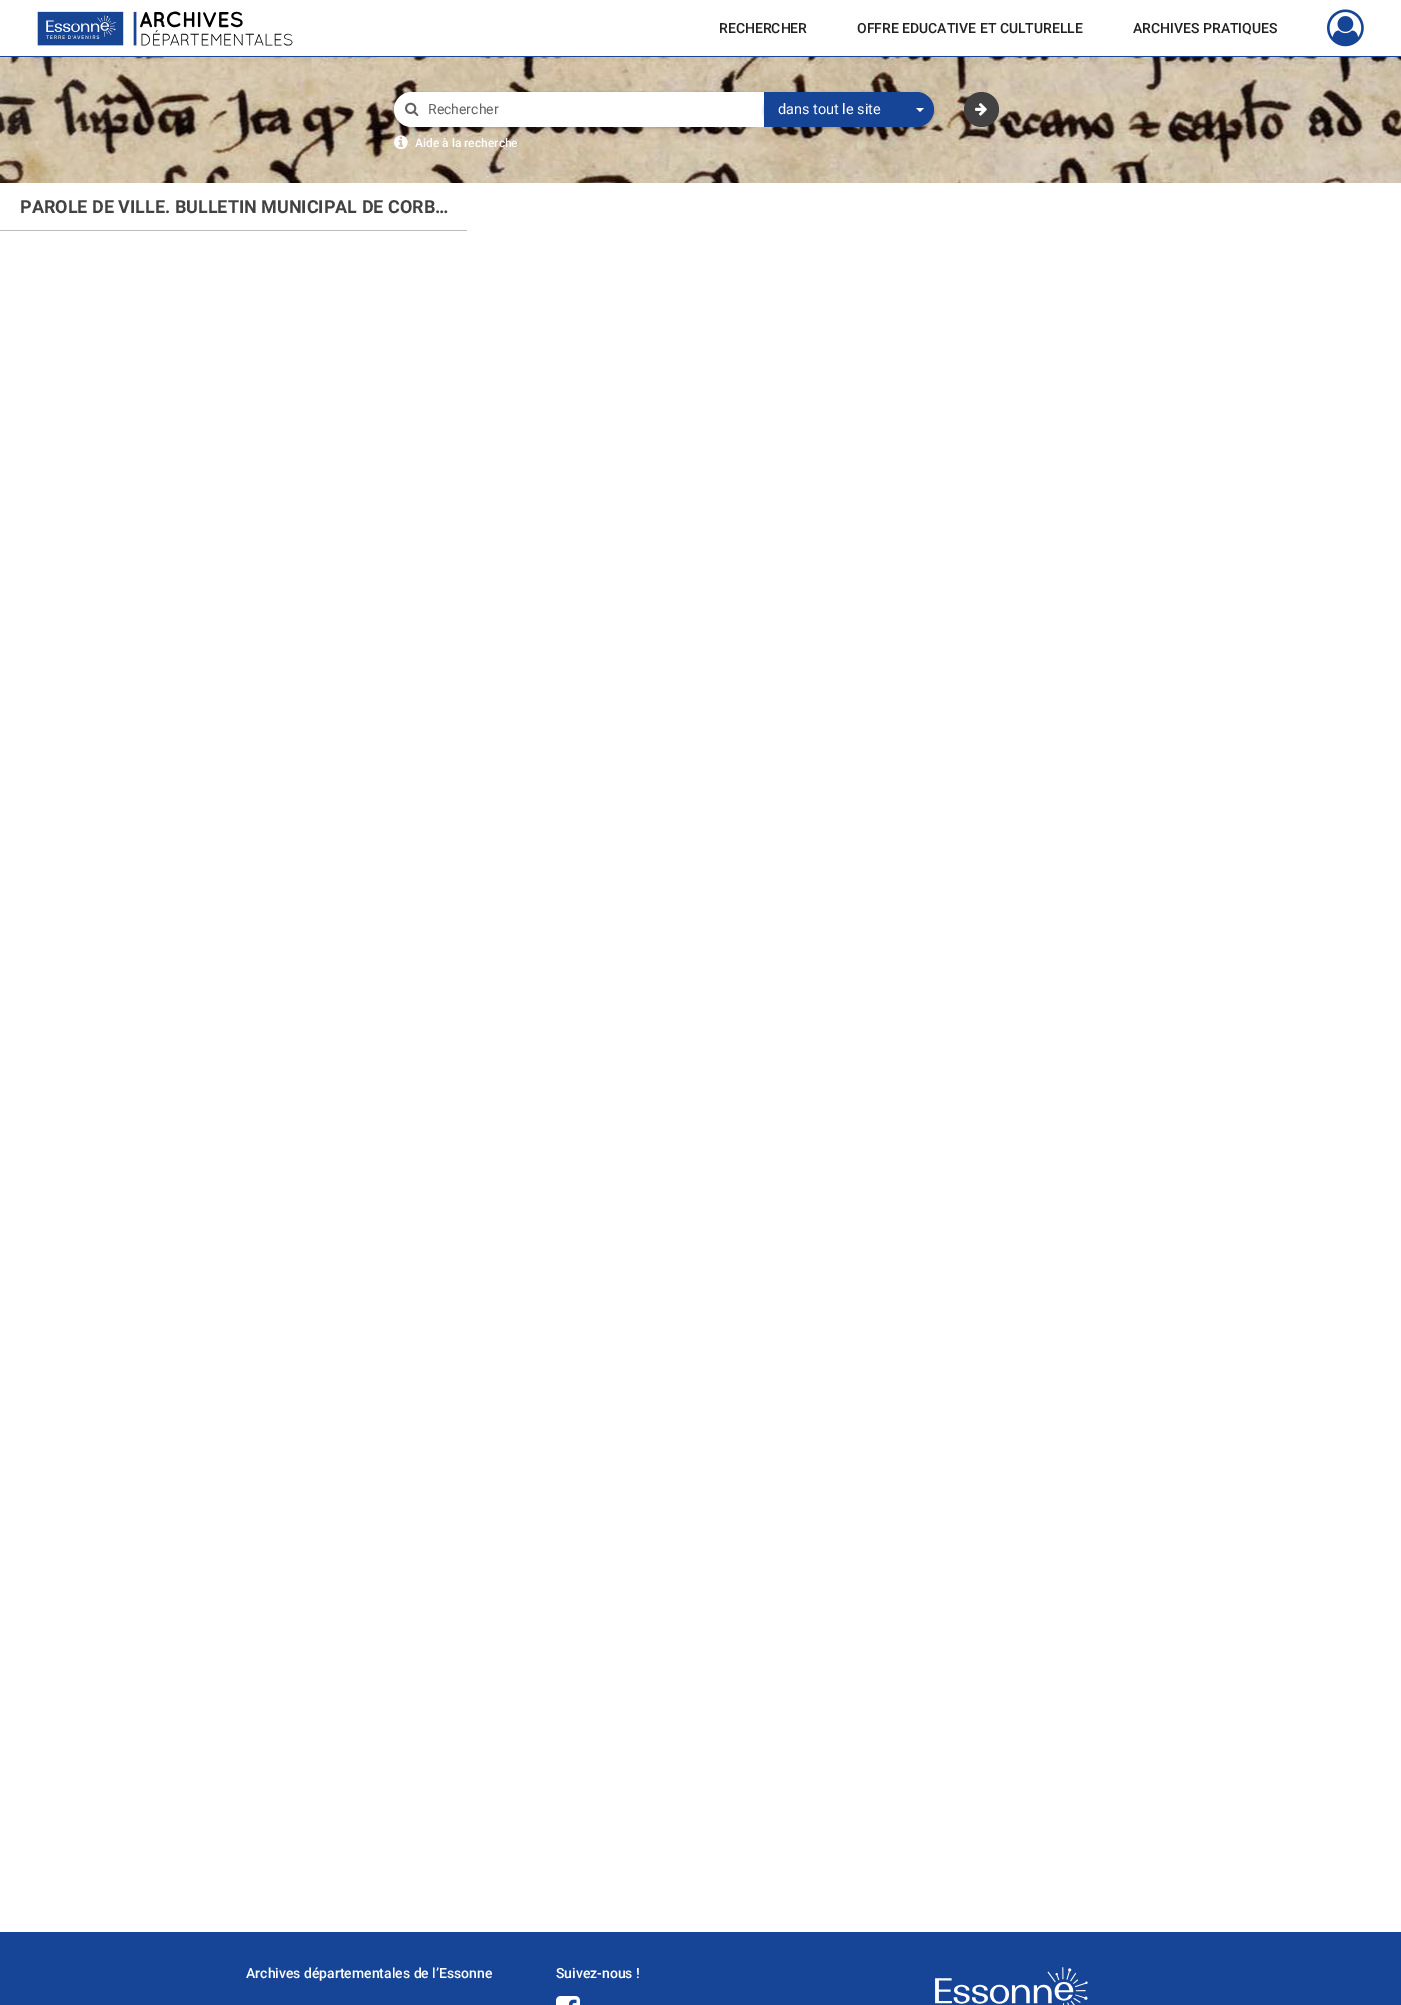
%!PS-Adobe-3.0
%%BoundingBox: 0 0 1401 2005
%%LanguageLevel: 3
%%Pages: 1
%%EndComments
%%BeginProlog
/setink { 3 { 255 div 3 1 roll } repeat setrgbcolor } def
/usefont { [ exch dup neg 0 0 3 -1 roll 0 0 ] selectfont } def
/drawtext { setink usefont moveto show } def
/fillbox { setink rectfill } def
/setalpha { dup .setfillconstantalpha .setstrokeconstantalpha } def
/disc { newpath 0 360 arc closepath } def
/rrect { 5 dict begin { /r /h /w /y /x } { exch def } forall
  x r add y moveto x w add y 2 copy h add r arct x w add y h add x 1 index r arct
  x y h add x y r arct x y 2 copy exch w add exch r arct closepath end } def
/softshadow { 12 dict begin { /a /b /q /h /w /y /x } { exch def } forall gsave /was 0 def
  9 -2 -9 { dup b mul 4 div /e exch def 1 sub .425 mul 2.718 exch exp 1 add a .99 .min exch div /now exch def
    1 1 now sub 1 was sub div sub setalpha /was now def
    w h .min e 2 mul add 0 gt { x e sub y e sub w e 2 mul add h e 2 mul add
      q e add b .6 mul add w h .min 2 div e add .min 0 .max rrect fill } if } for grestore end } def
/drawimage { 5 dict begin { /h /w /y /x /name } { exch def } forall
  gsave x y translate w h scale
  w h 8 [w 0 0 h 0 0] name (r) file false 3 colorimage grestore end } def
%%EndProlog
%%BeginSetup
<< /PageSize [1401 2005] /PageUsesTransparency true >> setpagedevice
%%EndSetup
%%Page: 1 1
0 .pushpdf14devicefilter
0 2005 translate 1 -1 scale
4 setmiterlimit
0 0 1401 2005 255 255 255 fillbox
0 56 1401 1 22 68 150 fillbox
(assets/img1.rgb) 37 11 256 35 drawimage
(RECHERCHER) 719 33 /Roboto-Medium 14 33 33 33 drawtext
(OFFRE EDUCATIVE ET CULTURELLE) 857 33 /Roboto-Medium 14 33 33 33 drawtext
(ARCHIVES PRATIQUES) 1133 33 /Roboto-Medium 14 33 33 33 drawtext
(assets/img2.rgb) 1327 9 37 38 drawimage
(assets/img3.rgb) 0 57 1401 126 drawimage
0 0 0 setink
394 93 370 35 17.5 1.5 0.25 softshadow
255 255 255 setink
411.5 92 moveto 764 92 lineto 764 127 lineto 411.5 127 lineto 402 127 394 119 394 109.5 curveto 394 100 402 92 411.5 92 curveto closepath fill
(assets/img4.rgb) 405 102 14 14 drawimage
(Rechercher) 428 114 /Roboto-Regular 14 97 97 97 drawtext
0 0 0 setink
764 93 170 35 17.5 1.5 0.25 softshadow
22 68 150 setink
764 92 moveto 916.5 92 lineto 926 92 934 100 934 109.5 curveto 934 119 926 127 916.5 127 curveto 764 127 lineto closepath fill
(dans tout le site) 778 114 /Roboto-Regular 14.5 255 255 255 drawtext
916 108 moveto 924 108 lineto 920 112 lineto closepath fill
66 66 66 setink
981.5 109.5 17.5 disc fill
(assets/img5.rgb) 975 103 12 13 drawimage
(assets/img6.rgb) 394 135 14 15 drawimage
(Aide à la recherche) 415 147 /Roboto-Medium 12 255 255 255 drawtext
0 230 467 1 189 189 189 fillbox
(PAROLE DE VILLE. BULLETIN MUNICIPAL DE CORB…) 20 213 /Roboto-Bold 18 66 66 66 drawtext
0 1932 1401 73 22 68 150 fillbox
(Archives départementales de l’Essonne) 246 1978 /Roboto-Medium 14 255 255 255 drawtext
(Suivez-nous !) 556 1978 /Roboto-Medium 14 255 255 255 drawtext
(assets/img7.rgb) 556 1996 24 9 drawimage
(assets/img8.rgb) 935 1967 153 38 drawimage
.poppdf14devicefilter showpage
%%EOF
